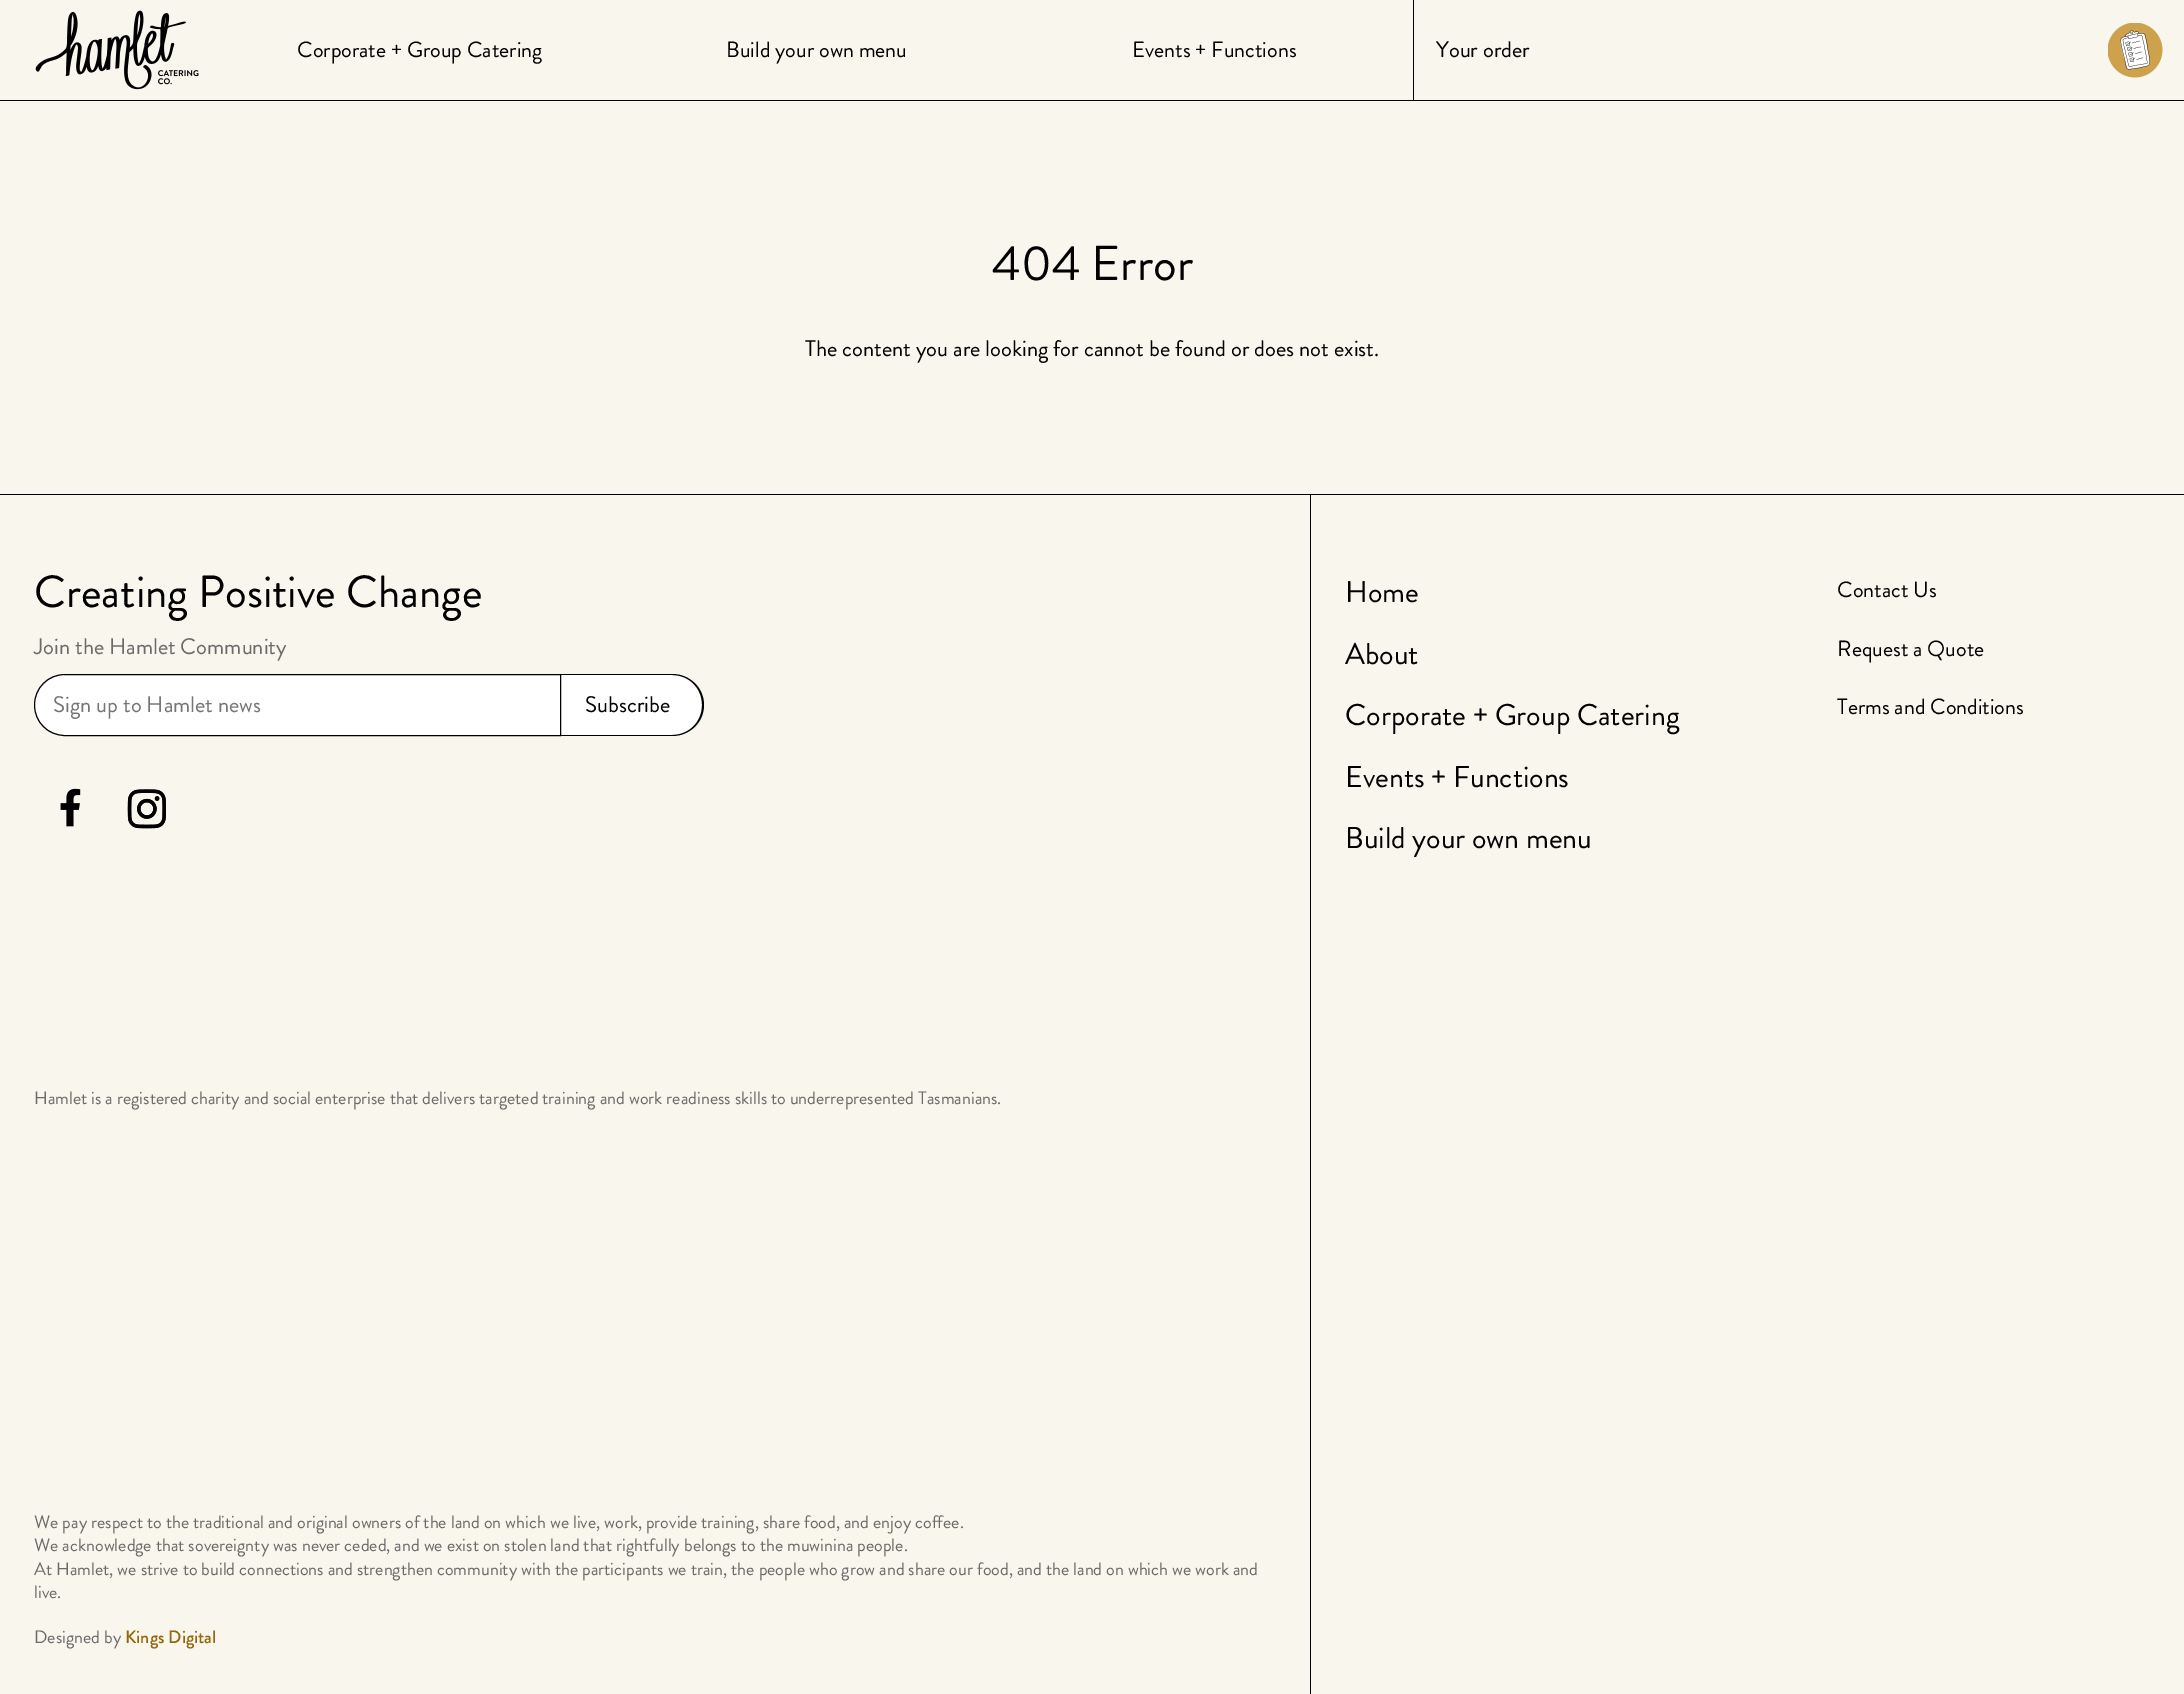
%!PS-Adobe-3.0
%%BoundingBox: 0 0 2184 1694
%%LanguageLevel: 3
%%Pages: 1
%%EndComments
%%BeginProlog
/setink { 3 { 255 div 3 1 roll } repeat setrgbcolor } def
/usefont { [ exch dup neg 0 0 3 -1 roll 0 0 ] selectfont } def
/drawtext { setink usefont moveto show } def
/fillbox { setink rectfill } def
/drawimage { 5 dict begin { /h /w /y /x /name } { exch def } forall
  gsave x y translate w h scale
  w h 8 [w 0 0 h 0 0] name (r) file false 3 colorimage grestore end } def
%%EndProlog
%%BeginSetup
<< /PageSize [2184 1694] >> setpagedevice
%%EndSetup
%%Page: 1 1
0 1694 translate 1 -1 scale
4 setmiterlimit
0 0 2184 1694 249 246 238 fillbox
0 100 2184 1 0 0 0 fillbox
(assets/img1.rgb) 35 10 164 80 drawimage
(Corporate + Group Catering) 297 57 /BrandonGrotesque-Regular 22 0 0 0 drawtext
(Build your own menu) 726 57 /BrandonGrotesque-Regular 22 0 0 0 drawtext
(Events + Functions) 1132 57 /BrandonGrotesque-Regular 22 0 0 0 drawtext
1413 0 1 100 0 0 0 fillbox
(Your order) 1436 57 /BrandonGrotesque-Regular 22.5 0 0 0 drawtext
(assets/img2.rgb) 2108 23 55 55 drawimage
(404 Error) 992 280 /BrandonGrotesque-Regular 49 0 0 0 drawtext
(The content you are looking for cannot be found or does not exist.) 805 356 /BrandonGrotesque-Regular 22.5 0 0 0 drawtext
0 494 2184 1 0 0 0 fillbox
(Creating Positive Change) 34 607 /BrandonGrotesque-Regular 45 0 0 0 drawtext
(Join the Hamlet Community) 34 654 /BrandonGrotesque-Regular 22.5 106 106 106 drawtext
255 255 255 setink
560 674 moveto 673 674 lineto 690 674 704 688 704 705 curveto 704 722 690 736 673 736 curveto 560 736 lineto closepath fill
0 0 0 setink
560 674 moveto 672 674 lineto 690 674 704 688 704 705 curveto 704 722 690 736 672 736 curveto 560 736 lineto closepath 560 675 moveto 672 675 lineto 689 675 702 688 702 705 curveto 702 722 689 735 672 735 curveto 560 735 lineto closepath eofill
255 255 255 setink
65 674.5 moveto 560.5 674.5 lineto 560.5 735.5 lineto 65 735.5 lineto 48 735.5 34.5 722 34.5 705 curveto 34.5 688 48 674.5 65 674.5 curveto closepath gsave fill grestore
0 0 0 setink
stroke
(Sign up to Hamlet news) 53 712 /BrandonGrotesque-Regular 22.5 117 117 117 drawtext
(Subscribe) 585 712 /BrandonGrotesque-Regular 22.5 0 0 0 drawtext
(assets/img3.rgb) 60 788 21 39 drawimage
(assets/img4.rgb) 127 789 39 40 drawimage
(Hamlet is a registered charity and social enterprise that delivers targeted training and work readiness skills to underrepresented Tasmanians.) 34 1104 /BrandonGrotesque-Regular 18 106 106 106 drawtext
1310 495 1 1199 0 0 0 fillbox
(Home) 1345 602 /BrandonGrotesque-Regular 30 0 0 0 drawtext
(About) 1345 664 /BrandonGrotesque-Regular 30 0 0 0 drawtext
(Corporate + Group Catering) 1345 725 /BrandonGrotesque-Regular 30 0 0 0 drawtext
(Events + Functions) 1345 787 /BrandonGrotesque-Regular 30 0 0 0 drawtext
(Build your own menu) 1345 848 /BrandonGrotesque-Regular 30 0 0 0 drawtext
(Contact Us) 1837 597 /BrandonGrotesque-Regular 22 0 0 0 drawtext
(Request a Quote) 1837 656 /BrandonGrotesque-Regular 22 0 0 0 drawtext
(Terms and Conditions) 1837 714 /BrandonGrotesque-Regular 22 0 0 0 drawtext
(We pay respect to the traditional and original owners of the land on which we live,) 34 1528 /BrandonGrotesque-Regular 18 106 106 106 drawtext
(work, provide training, share food, and enjoy coffee.) 604 1528 /BrandonGrotesque-Regular 18 106 106 106 drawtext
(We acknowledge that sovereignty was never ceded, and we exist on stolen land that rightfully belongs to the muwinina people.) 34 1551 /BrandonGrotesque-Regular 18 106 106 106 drawtext
(At Hamlet, we strive to build connections and strengthen community with the participants we train, the people who grow and share our food, and the land on which we work and) 34 1575 /BrandonGrotesque-Regular 18 106 106 106 drawtext
(live.) 34 1598 /BrandonGrotesque-Regular 18 106 106 106 drawtext
(Designed by) 34 1643 /BrandonGrotesque-Regular 18 106 106 106 drawtext
(Kings Digital) 125 1643 /BrandonGrotesque-Medium 18 151 102 12 drawtext
showpage
%%EOF
